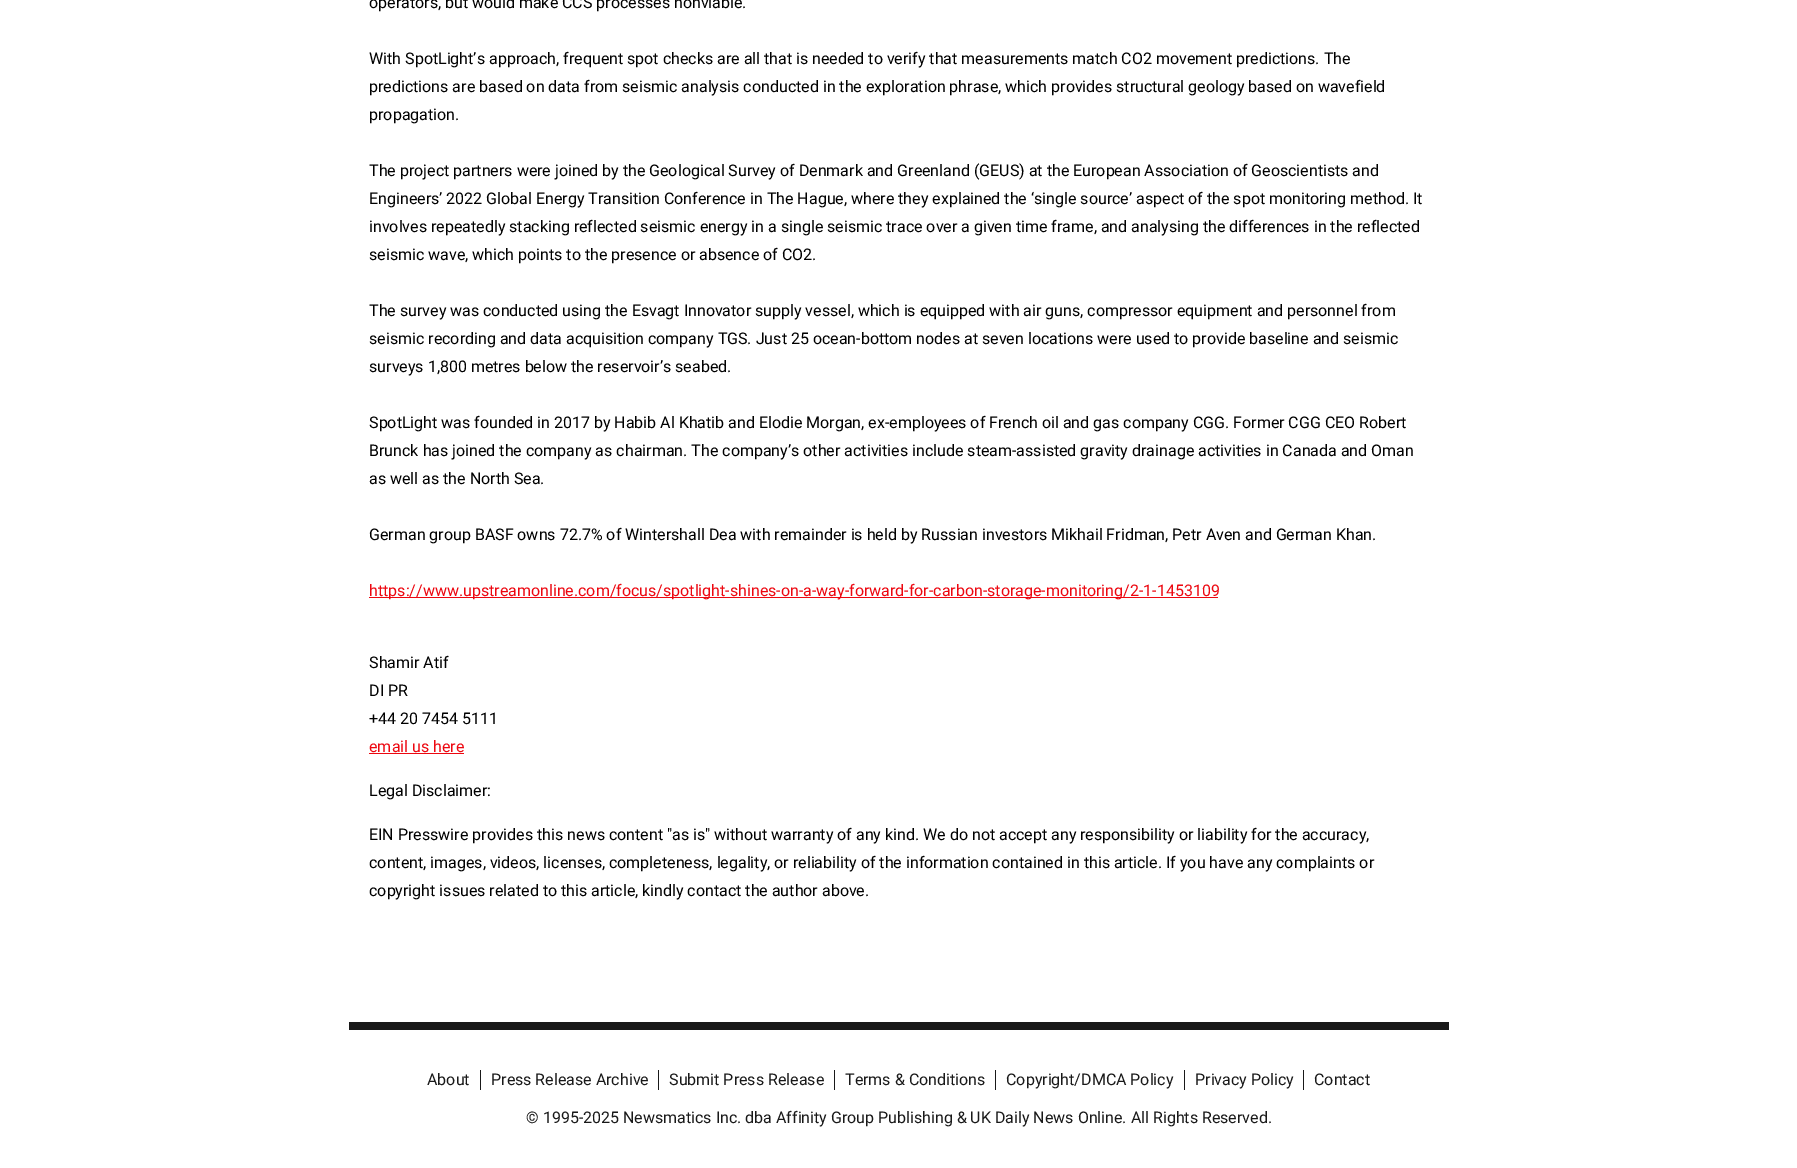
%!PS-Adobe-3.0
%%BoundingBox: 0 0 1797 1168
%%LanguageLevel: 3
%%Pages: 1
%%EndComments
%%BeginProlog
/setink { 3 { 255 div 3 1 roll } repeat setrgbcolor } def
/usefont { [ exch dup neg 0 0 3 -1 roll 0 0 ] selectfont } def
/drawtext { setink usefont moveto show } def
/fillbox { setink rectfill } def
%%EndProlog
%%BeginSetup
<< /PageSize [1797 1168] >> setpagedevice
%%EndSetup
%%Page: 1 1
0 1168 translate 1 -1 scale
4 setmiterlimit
0 0 1797 1168 255 255 255 fillbox
(operators, but would make CCS processes nonviable.) 369 8 /Roboto-Regular 16 0 0 0 drawtext
(With SpotLight’s approach, frequent spot checks are all that is needed to verify that measurements match CO2 movement predictions. The) 369 64 /Roboto-Regular 16 0 0 0 drawtext
(predictions are based on data from seismic analysis conducted in the exploration phrase, which provides structural geology based on wavefield) 369 92 /Roboto-Regular 16 0 0 0 drawtext
(propagation.) 369 120 /Roboto-Regular 16 0 0 0 drawtext
(The project partners were joined by the Geological Survey of Denmark and Greenland \(GEUS\) at the European Association of Geoscientists and) 369 176 /Roboto-Regular 16 0 0 0 drawtext
(Engineers’ 2022 Global Energy Transition Conference in The Hague, where they explained the ‘single source’ aspect of the spot monitoring method. It) 369 204 /Roboto-Regular 16 0 0 0 drawtext
(involves repeatedly stacking reflected seismic energy in a single seismic trace over a given time frame, and analysing the differences in the reflected) 369 232 /Roboto-Regular 16 0 0 0 drawtext
(seismic wave, which points to the presence or absence of CO2.) 369 260 /Roboto-Regular 16 0 0 0 drawtext
(The survey was conducted using the Esvagt Innovator supply vessel, which is equipped with air guns, compressor equipment and personnel from) 369 316 /Roboto-Regular 16 0 0 0 drawtext
(seismic recording and data acquisition company TGS. Just 25 ocean-bottom nodes at seven locations were used to provide baseline and seismic) 369 344 /Roboto-Regular 16 0 0 0 drawtext
(surveys 1,800 metres below the reservoir’s seabed.) 369 372 /Roboto-Regular 16 0 0 0 drawtext
(SpotLight was founded in 2017 by Habib Al Khatib and Elodie Morgan, ex-employees of French oil and gas company CGG. Former CGG CEO Robert) 369 428 /Roboto-Regular 16 0 0 0 drawtext
(Brunck has joined the company as chairman. The company’s other activities include steam-assisted gravity drainage activities in Canada and Oman) 369 456 /Roboto-Regular 16 0 0 0 drawtext
(as well as the North Sea.) 369 484 /Roboto-Regular 16 0 0 0 drawtext
(German group BASF owns 72.7% of Wintershall Dea with remainder is held by Russian investors Mikhail Fridman, Petr Aven and German Khan.) 369 540 /Roboto-Regular 16 0 0 0 drawtext
369 597 849 1 237 7 16 fillbox
(https://www.upstreamonline.com/focus/spotlight-shines-on-a-way-forward-for-carbon-storage-monitoring/2-1-1453109) 369 596 /Roboto-Regular 16 237 7 16 drawtext
(Shamir Atif) 369 668 /Roboto-Regular 16 0 0 0 drawtext
(DI PR) 369 696 /Roboto-Regular 16 0 0 0 drawtext
(+44 20 7454 5111) 369 724 /Roboto-Regular 16 0 0 0 drawtext
(email us here) 369 752 /Roboto-Regular 16 237 7 16 drawtext
369 753 95 1 237 7 16 fillbox
(Legal Disclaimer:) 369 796 /Roboto-Regular 16 0 0 0 drawtext
(EIN Presswire provides this news content "as is" without warranty of any kind. We do not accept any responsibility or liability for the accuracy,) 369 840 /Roboto-Regular 16 0 0 0 drawtext
(content, images, videos, licenses, completeness, legality, or reliability of the information contained in this article. If you have any complaints or) 369 868 /Roboto-Regular 16 0 0 0 drawtext
(copyright issues related to this article, kindly contact the author above.) 369 896 /Roboto-Regular 16 0 0 0 drawtext
349 1022 1100 8 25 25 25 fillbox
480 1070 1 20 25 25 25 fillbox
(About) 427 1085 /Roboto-Regular 16 25 25 25 drawtext
658 1070 1 20 25 25 25 fillbox
(Press Release Archive) 491 1085 /Roboto-Regular 16 25 25 25 drawtext
834 1070 1 20 25 25 25 fillbox
(Submit Press Release) 669 1085 /Roboto-Regular 16 25 25 25 drawtext
995 1070 1 20 25 25 25 fillbox
(Terms & Conditions) 845 1085 /Roboto-Regular 16 25 25 25 drawtext
1184 1070 1 20 25 25 25 fillbox
(Copyright/DMCA Policy) 1006 1085 /Roboto-Regular 16 25 25 25 drawtext
1303 1070 1 20 25 25 25 fillbox
(Privacy Policy) 1195 1085 /Roboto-Regular 16 25 25 25 drawtext
(Contact) 1314 1085 /Roboto-Regular 16 25 25 25 drawtext
(© 1995-2025 Newsmatics Inc. dba Affinity Group Publishing & UK Daily News Online. All Rights Reserved.) 526 1123 /Roboto-Regular 16 25 25 25 drawtext
showpage
%%EOF
